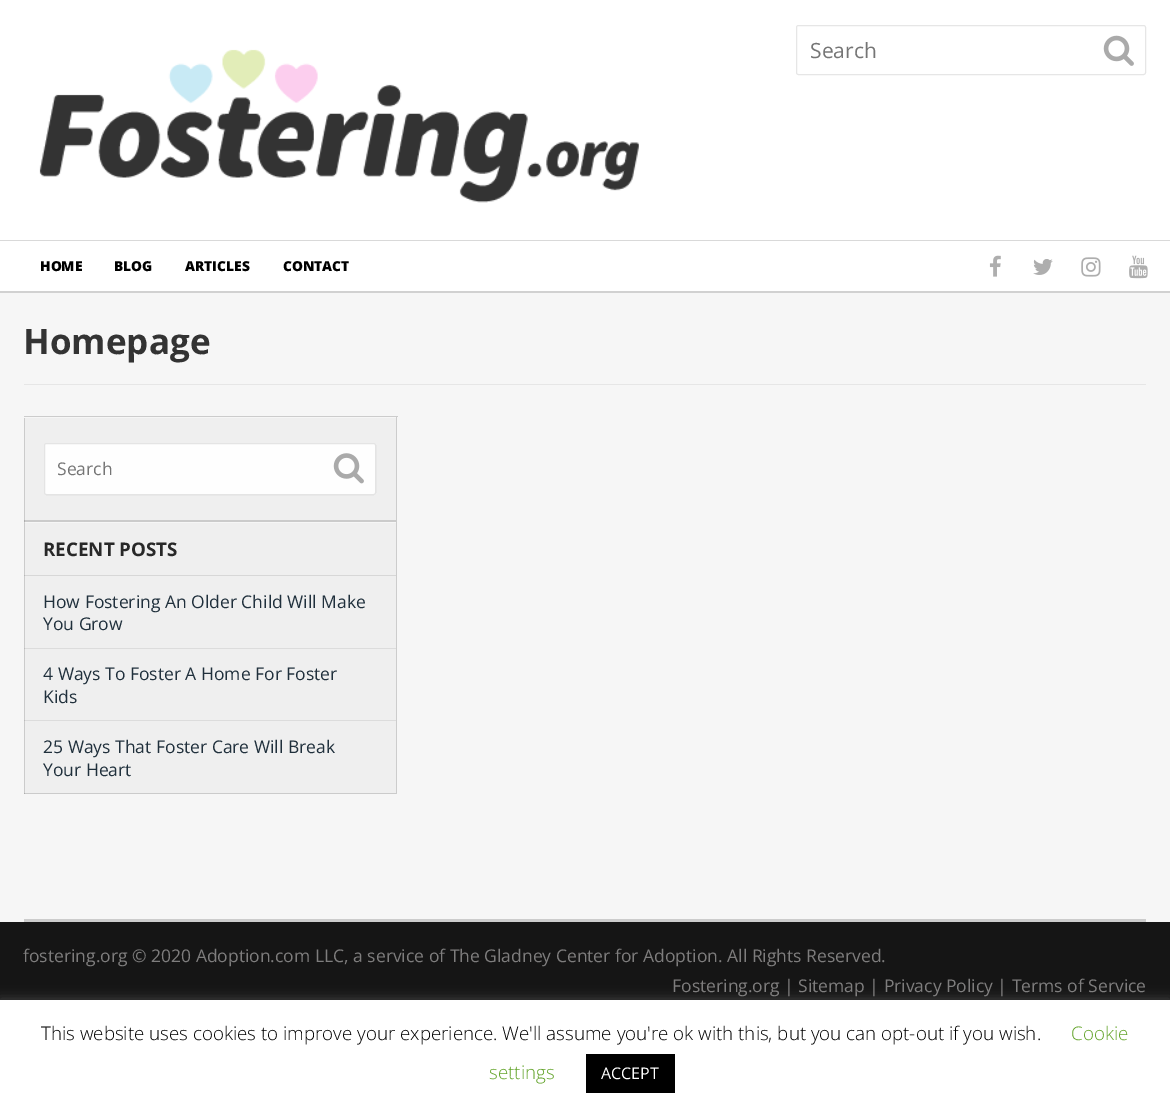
%!PS-Adobe-3.0
%%BoundingBox: 0 0 1170 1113
%%LanguageLevel: 3
%%Pages: 1
%%EndComments
%%BeginProlog
/setink { 3 { 255 div 3 1 roll } repeat setrgbcolor } def
/usefont { [ exch dup neg 0 0 3 -1 roll 0 0 ] selectfont } def
/drawtext { setink usefont moveto show } def
/fillbox { setink rectfill } def
/setalpha { dup .setfillconstantalpha .setstrokeconstantalpha } def
/rrect { 5 dict begin { /r /h /w /y /x } { exch def } forall
  x r add y moveto x w add y 2 copy h add r arct x w add y h add x 1 index r arct
  x y h add x y r arct x y 2 copy exch w add exch r arct closepath end } def
/softshadow { 12 dict begin { /a /b /q /h /w /y /x } { exch def } forall gsave /was 0 def
  9 -2 -9 { dup b mul 4 div /e exch def 1 sub .425 mul 2.718 exch exp 1 add a .99 .min exch div /now exch def
    1 1 now sub 1 was sub div sub setalpha /was now def
    w h .min e 2 mul add 0 gt { x e sub y e sub w e 2 mul add h e 2 mul add
      q e add b .6 mul add w h .min 2 div e add .min 0 .max rrect fill } if } for grestore end } def
/drawimage { 5 dict begin { /h /w /y /x /name } { exch def } forall
  gsave x y translate w h scale
  w h 8 [w 0 0 h 0 0] name (r) file false 3 colorimage grestore end } def
%%EndProlog
%%BeginSetup
<< /PageSize [1170 1113] /PageUsesTransparency true >> setpagedevice
%%EndSetup
%%Page: 1 1
0 .pushpdf14devicefilter
0 1113 translate 1 -1 scale
4 setmiterlimit
0 0 1170 1113 246 246 246 fillbox
24 522 1 1 209 209 209 fillbox
0 0 1170 240 255 255 255 fillbox
(assets/img1.rgb) 39 49 600 154 drawimage
230 230 230 setink
796.5 25.5 349 49 2 rrect stroke
(Search) 810 58 /OpenSans-Regular 21 117 117 117 drawtext
(assets/img2.rgb) 1103 35 31 31 drawimage
0 291 1170 2 209 209 209 fillbox
0 241 1170 50 255 255 255 fillbox
0 240 1170 1 217 217 217 fillbox
(HOME) 40 271 /OpenSans-ExtraBold 13.75 0 0 0 drawtext
(BLOG) 114 271 /OpenSans-ExtraBold 13.75 0 0 0 drawtext
(ARTICLES) 185 271 /OpenSans-ExtraBold 13.75 0 0 0 drawtext
(CONTACT) 283 271 /OpenSans-ExtraBold 13.75 0 0 0 drawtext
(assets/img3.rgb) 989 255 12 22 drawimage
(assets/img4.rgb) 1033 259 20 16 drawimage
(assets/img5.rgb) 1081 257 20 20 drawimage
(assets/img6.rgb) 1129 255 19 24 drawimage
24 384 1122 1 230 230 230 fillbox
(Homepage) 23 354 /OpenSans-Bold 35 51 51 51 drawtext
24 416 374 1 204 204 204 fillbox
396 416 1 378 204 204 204 fillbox
25 418 371 102 239 239 239 fillbox
24 418 1 103 203 203 203 fillbox
24 520 372 2 203 203 203 fillbox
24 520 1 2 173 173 173 fillbox
254 254 254 setink
44 443 332 52 2.5 rrect fill
0.1 setalpha
0 0 0 setink
44.5 443.5 331 51 2 rrect stroke
1 setalpha
(Search) 57 475 /OpenSans-Regular 17.5 117 117 117 drawtext
(assets/img7.rgb) 333 453 31 31 drawimage
25 523 371 270 239 239 239 fillbox
24 523 1 271 203 203 203 fillbox
24 793 372 1 203 203 203 fillbox
24 793 1 1 173 173 173 fillbox
24 575 372 1 215 215 215 fillbox
24 575 1 1 183 183 183 fillbox
(RECENT POSTS) 43 556 /OpenSans-Bold 18.75 40 40 40 drawtext
24 648 372 1 220 220 220 fillbox
24 648 1 1 187 187 187 fillbox
(How Fostering An Older Child Will Make) 43 608 /OpenSans-Regular 17.5 32 48 60 drawtext
(You Grow) 43 630 /OpenSans-Regular 17.5 32 48 60 drawtext
24 720 372 1 220 220 220 fillbox
24 720 1 1 187 187 187 fillbox
(4 Ways To Foster A Home For Foster) 43 680 /OpenSans-Regular 17.5 32 48 60 drawtext
(Kids) 43 703 /OpenSans-Regular 17.5 32 48 60 drawtext
(25 Ways That Foster Care Will Break) 43 753 /OpenSans-Regular 17.5 32 48 60 drawtext
(Your Heart) 43 776 /OpenSans-Regular 17.5 32 48 60 drawtext
24 919 1122 3 204 204 204 fillbox
0 922 1170 78 21 21 21 fillbox
(fostering.org © 2020 Adoption.com LLC, a service of The Gladney Center for Adoption. All Rights Reserved.) 23 962 /OpenSans-Regular 17.5 126 125 125 drawtext
(Fostering.org | Sitemap | Privacy Policy | Terms of Service) 672 992 /OpenSans-Regular 17.5 126 125 125 drawtext
172 171 171 setink
0 999 1170 114 0 6 0.3 softshadow
0 1000 1170 113 255 255 255 fillbox
(This website uses cookies to improve your experience. We'll assume you're ok with this, but you can opt-out if you wish.) 41 1040 /OpenSans-Light 18.75 0 0 0 drawtext
(Cookie) 1071 1040 /OpenSans-Light 18.75 98 163 41 drawtext
(settings) 489 1079 /OpenSans-Light 18.75 98 163 41 drawtext
586 1054 89 39 0 0 0 fillbox
(ACCEPT) 601 1079 /OpenSans-Regular 16 255 255 255 drawtext
.poppdf14devicefilter showpage
%%EOF
